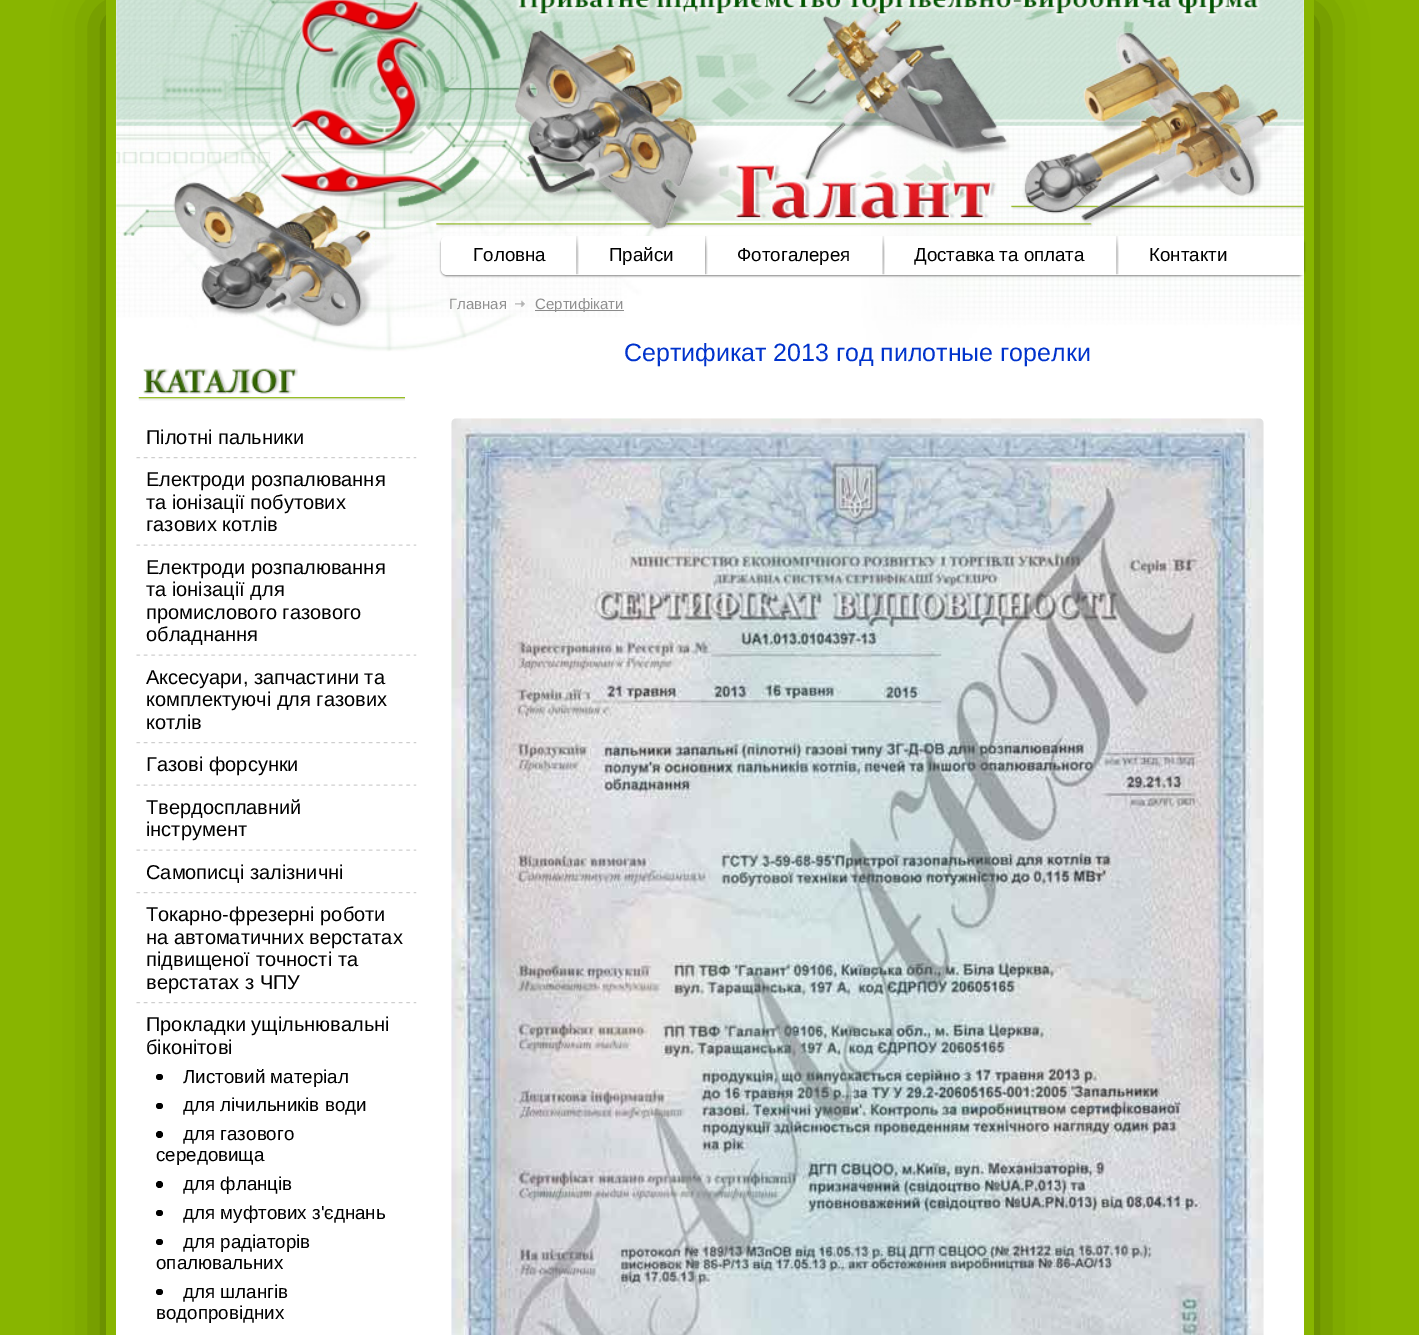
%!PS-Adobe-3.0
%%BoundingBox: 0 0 1419 1335
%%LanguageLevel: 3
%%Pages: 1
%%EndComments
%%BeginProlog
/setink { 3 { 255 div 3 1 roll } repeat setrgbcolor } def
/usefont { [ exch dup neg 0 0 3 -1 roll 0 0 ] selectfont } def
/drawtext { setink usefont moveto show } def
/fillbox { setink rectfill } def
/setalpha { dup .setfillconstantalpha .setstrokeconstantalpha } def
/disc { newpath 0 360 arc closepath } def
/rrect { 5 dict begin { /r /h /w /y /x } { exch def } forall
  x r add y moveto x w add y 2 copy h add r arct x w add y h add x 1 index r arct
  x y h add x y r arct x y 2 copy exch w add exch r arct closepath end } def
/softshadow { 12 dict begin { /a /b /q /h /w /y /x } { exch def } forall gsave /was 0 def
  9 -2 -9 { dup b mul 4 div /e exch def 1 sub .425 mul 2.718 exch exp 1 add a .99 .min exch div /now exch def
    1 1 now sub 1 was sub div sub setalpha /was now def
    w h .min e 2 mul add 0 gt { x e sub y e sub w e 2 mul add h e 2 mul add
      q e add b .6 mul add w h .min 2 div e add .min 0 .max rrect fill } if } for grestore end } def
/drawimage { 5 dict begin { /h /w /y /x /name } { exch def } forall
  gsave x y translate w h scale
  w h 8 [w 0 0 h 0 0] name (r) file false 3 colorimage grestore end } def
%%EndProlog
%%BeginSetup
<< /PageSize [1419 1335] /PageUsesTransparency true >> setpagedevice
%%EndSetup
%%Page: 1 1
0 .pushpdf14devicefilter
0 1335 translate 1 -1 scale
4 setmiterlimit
0 0 1419 1335 136 181 0 fillbox
gsave
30 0 moveto 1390 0 lineto 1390 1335 lineto 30 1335 lineto closepath 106 -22 moveto 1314 -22 lineto 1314 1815 lineto 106 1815 lineto closepath eoclip newpath
0 0 0 setink
106 15 1208 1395 0 25 0.4 softshadow
grestore
116 0 1188 1335 255 255 255 fillbox
(assets/img1.rgb) 116 0 1188 352 drawimage
(assets/img2.rgb) 280 0 168 197 drawimage
0 0 0 setink
441 238 863 38 6 1 0.5 softshadow
255 255 255 setink
447 236 moveto 1304 236 lineto 1304 275 lineto 447 275 lineto 443.5 275 441 272.5 441 269 curveto 441 242 lineto 441 238.5 443.5 236 447 236 curveto closepath fill
(Головна) 473 261 /LiberationSans-Regular 18.75 0 0 0 drawtext
(assets/img3.rgb) 576 236 3 39 drawimage
(Прайси) 609 261 /LiberationSans-Regular 18.75 0 0 0 drawtext
(assets/img4.rgb) 705 236 3 39 drawimage
(Фотогалерея) 737 261 /LiberationSans-Regular 18.75 0 0 0 drawtext
(assets/img5.rgb) 882 236 3 39 drawimage
(Доставка та оплата) 914 261 /LiberationSans-Regular 18.75 0 0 0 drawtext
(assets/img3.rgb) 1116 236 3 39 drawimage
(Контакти) 1149 261 /LiberationSans-Regular 18.75 0 0 0 drawtext
(assets/img6.rgb) 515 300 10 7 drawimage
(Главная) 449 309 /LiberationSans-Regular 15 143 143 143 drawtext
535 310 89 1 139 139 139 fillbox
(Сертифікати) 535 309 /LiberationSans-Regular 15 143 143 143 drawtext
(Сертификат 2013 год пилотные горелки) 624 361 /LiberationSans-Regular 25 0 51 204 drawtext
(assets/img7.rgb) 451 418 813 917 drawimage
(assets/img8.rgb) 138 397 267 4 drawimage
(assets/img9.rgb) 143 368 155 26 drawimage
(assets/img10.rgb) 136 457 281 2 drawimage
(Пілотні пальники) 146 444 /LiberationSans-Regular 20 0 0 0 drawtext
(assets/img11.rgb) 136 544 281 2 drawimage
(Електроди розпалювання) 146 486 /LiberationSans-Regular 20 0 0 0 drawtext
(та іонізації побутових) 146 509 /LiberationSans-Regular 20 0 0 0 drawtext
(газових котлів) 146 531 /LiberationSans-Regular 20 0 0 0 drawtext
(assets/img11.rgb) 136 654 281 2 drawimage
(Електроди розпалювання) 146 574 /LiberationSans-Regular 20 0 0 0 drawtext
(та іонізації для) 146 596 /LiberationSans-Regular 20 0 0 0 drawtext
(промислового газового) 146 619 /LiberationSans-Regular 20 0 0 0 drawtext
(обладнання) 146 641 /LiberationSans-Regular 20 0 0 0 drawtext
(assets/img10.rgb) 136 742 281 2 drawimage
(Аксесуари, запчастини та) 146 684 /LiberationSans-Regular 20 0 0 0 drawtext
(комплектуючі для газових) 146 706 /LiberationSans-Regular 20 0 0 0 drawtext
(котлів) 146 729 /LiberationSans-Regular 20 0 0 0 drawtext
(assets/img11.rgb) 136 784 281 2 drawimage
(Газові форсунки) 146 771 /LiberationSans-Regular 20 0 0 0 drawtext
(assets/img11.rgb) 136 849 281 2 drawimage
(Твердосплавний) 146 814 /LiberationSans-Regular 20 0 0 0 drawtext
(інструмент) 146 836 /LiberationSans-Regular 20 0 0 0 drawtext
(assets/img10.rgb) 136 892 281 2 drawimage
(Самописці залізничні) 146 879 /LiberationSans-Regular 20 0 0 0 drawtext
(assets/img10.rgb) 136 1002 281 2 drawimage
(Токарно-фрезерні роботи) 146 921 /LiberationSans-Regular 20 0 0 0 drawtext
(на автоматичних верстатах) 146 944 /LiberationSans-Regular 20 0 0 0 drawtext
(підвищеної точності та) 146 966 /LiberationSans-Regular 20 0 0 0 drawtext
(верстатах з ЧПУ) 146 989 /LiberationSans-Regular 20 0 0 0 drawtext
(Прокладки ущільнювальні) 146 1031 /LiberationSans-Regular 20 0 0 0 drawtext
(біконітові) 146 1054 /LiberationSans-Regular 20 0 0 0 drawtext
156 1074 7 6 3 rrect fill
(Листовий матеріал) 183 1083 /LiberationSans-Regular 18.75 0 0 0 drawtext
156 1103 7 6 3 rrect fill
(для лічильників води) 183 1111 /LiberationSans-Regular 18.75 0 0 0 drawtext
159.5 1134.5 3.5 disc fill
(для газового) 183 1140 /LiberationSans-Regular 18.75 0 0 0 drawtext
(середовища) 156 1161 /LiberationSans-Regular 18.75 0 0 0 drawtext
159.5 1184.5 3.5 disc fill
(для фланців) 183 1190 /LiberationSans-Regular 18.75 0 0 0 drawtext
156 1210 7 6 3 rrect fill
(для муфтових з'єднань) 183 1219 /LiberationSans-Regular 18.75 0 0 0 drawtext
156 1239 7 6 3 rrect fill
(для радіаторів) 183 1248 /LiberationSans-Regular 18.75 0 0 0 drawtext
(опалювальних) 156 1269 /LiberationSans-Regular 18.75 0 0 0 drawtext
156 1289 7 6 3 rrect fill
(для шлангів) 183 1298 /LiberationSans-Regular 18.75 0 0 0 drawtext
(водопровідних) 156 1319 /LiberationSans-Regular 18.75 0 0 0 drawtext
.poppdf14devicefilter showpage
%%EOF
